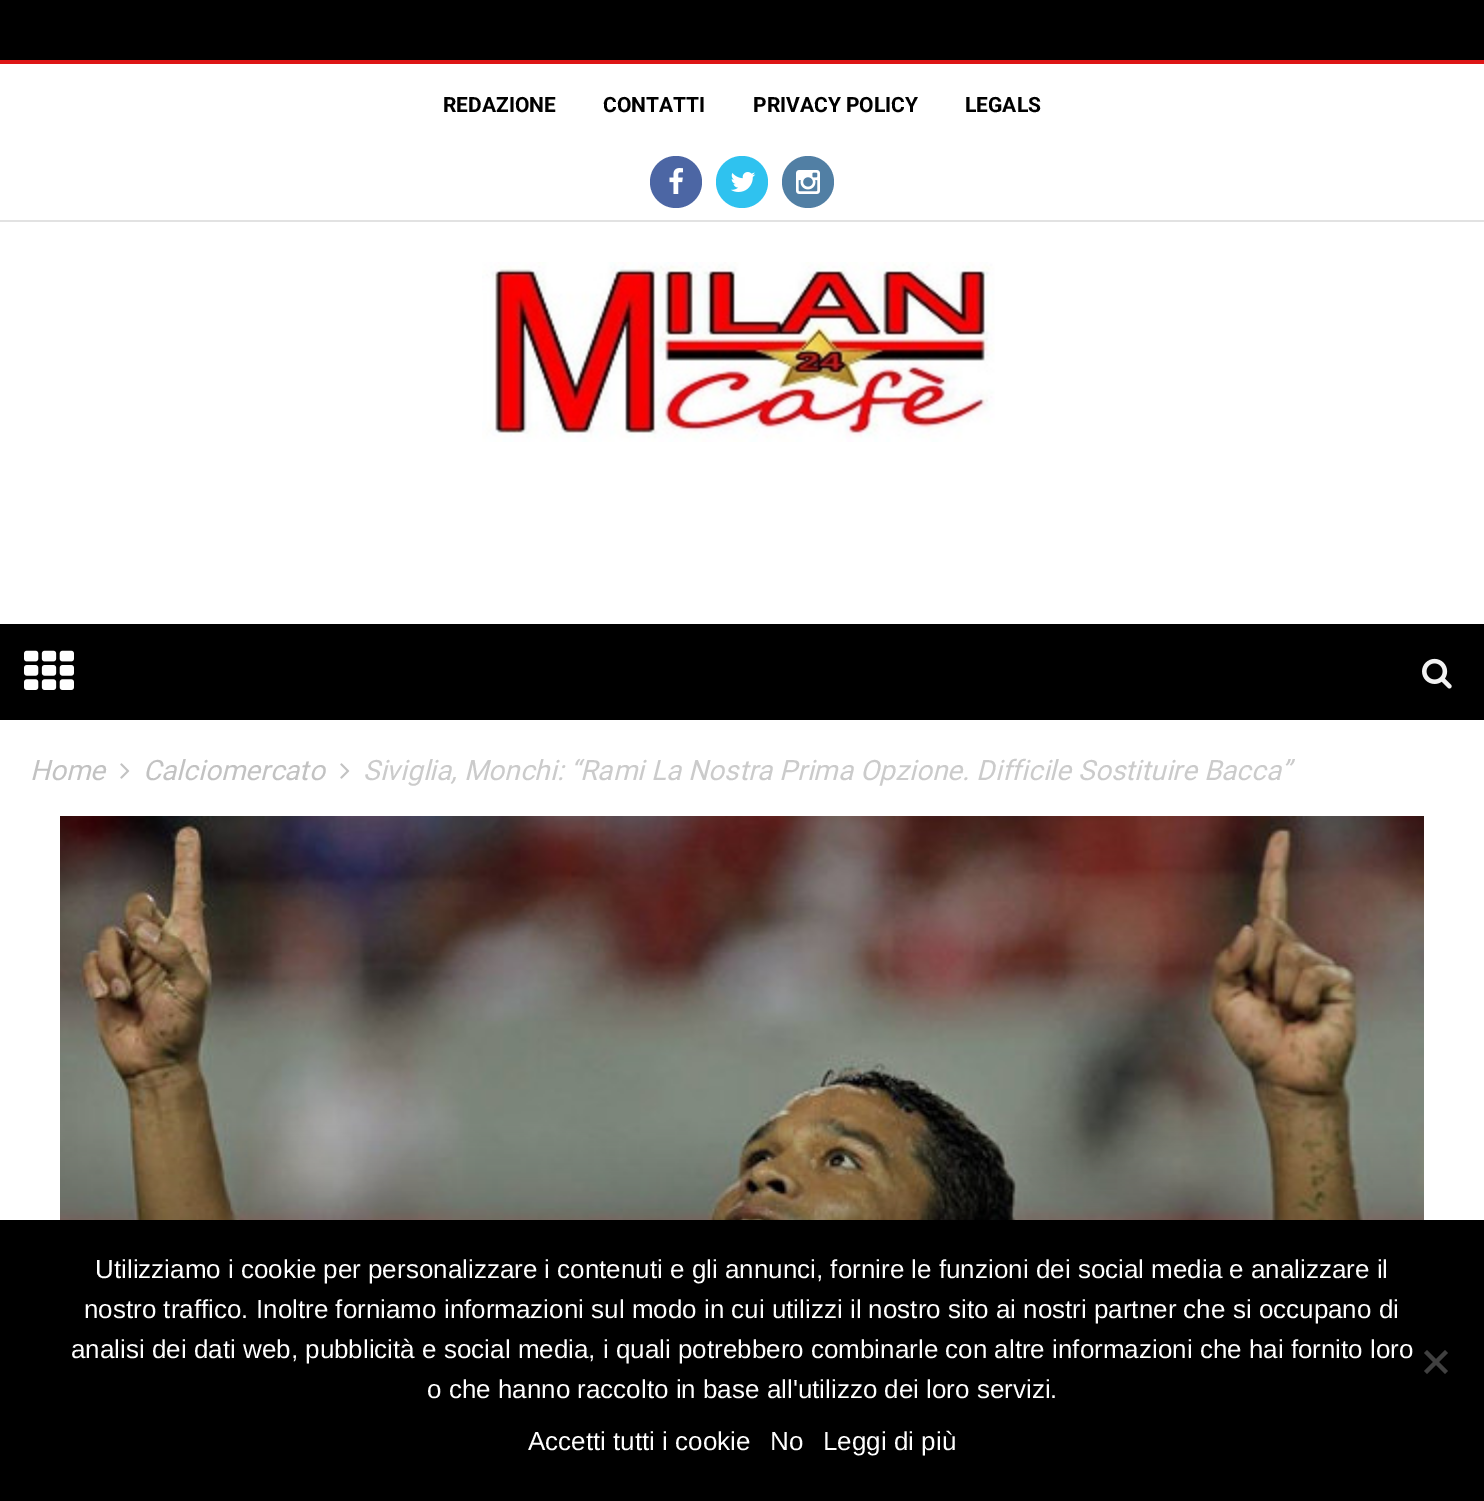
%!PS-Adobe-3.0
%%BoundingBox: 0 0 1484 1501
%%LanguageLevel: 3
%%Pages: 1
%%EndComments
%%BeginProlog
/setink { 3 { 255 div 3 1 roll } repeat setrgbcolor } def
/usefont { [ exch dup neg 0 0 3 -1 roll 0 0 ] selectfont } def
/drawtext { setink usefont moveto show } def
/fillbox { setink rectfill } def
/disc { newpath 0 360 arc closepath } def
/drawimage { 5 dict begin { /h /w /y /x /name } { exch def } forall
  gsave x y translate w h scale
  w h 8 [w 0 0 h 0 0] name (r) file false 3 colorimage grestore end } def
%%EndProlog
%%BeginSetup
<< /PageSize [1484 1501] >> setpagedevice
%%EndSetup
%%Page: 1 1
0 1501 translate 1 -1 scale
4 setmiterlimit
0 0 1484 1501 0 0 0 fillbox
0 64 1484 1156 255 255 255 fillbox
0 60 1484 4 221 22 22 fillbox
0 220 1484 2 226 226 226 fillbox
(REDAZIONE) 443 112 /Roboto-Bold 21 0 0 0 drawtext
(CONTATTI) 603 112 /Roboto-Bold 21 0 0 0 drawtext
(PRIVACY POLICY) 753 112 /Roboto-Bold 21 0 0 0 drawtext
(LEGALS) 965 112 /Roboto-Bold 21 0 0 0 drawtext
76 102 164 setink
676 182 26 disc fill
(assets/img1.rgb) 669 168 14 26 drawimage
47 194 239 setink
742 182 26 disc fill
(assets/img2.rgb) 730 172 26 20 drawimage
81 127 164 setink
808 182 26 disc fill
(assets/img3.rgb) 796 170 24 24 drawimage
(assets/img4.rgb) 482 262 513 180 drawimage
0 624 1484 96 0 0 0 fillbox
(assets/img5.rgb) 24 650 50 40 drawimage
(assets/img6.rgb) 1422 658 30 31 drawimage
(Home) 30 780 /Roboto-Italic 28 194 194 194 drawtext
(assets/img7.rgb) 120 763 10 16 drawimage
(Calciomercato) 143 780 /Roboto-Italic 28 194 194 194 drawtext
(assets/img7.rgb) 340 763 10 16 drawimage
(Siviglia, Monchi: “Rami La Nostra Prima Opzione. Difficile Sostituire Bacca”) 363 780 /Roboto-Italic 28 203 203 203 drawtext
(assets/img8.rgb) 60 816 1364 404 drawimage
(Utilizziamo i cookie per personalizzare i contenuti e gli annunci, fornire le funzioni dei social media e analizzare il) 95 1278 /LiberationSans-Regular 26 255 255 255 drawtext
(nostro traffico. Inoltre forniamo informazioni sul modo in cui utilizzi il nostro sito ai nostri partner che si occupano di) 84 1318 /LiberationSans-Regular 26 255 255 255 drawtext
(analisi dei dati web, pubblicità e social media, i quali potrebbero combinarle con altre informazioni che hai fornito loro) 71 1358 /LiberationSans-Regular 26 255 255 255 drawtext
(o che hanno raccolto in base all'utilizzo dei loro servizi.) 427 1398 /LiberationSans-Regular 26 255 255 255 drawtext
64 64 64 setink
1445 1350 moveto 1448 1353 lineto 1427 1374 lineto 1424 1371 lineto closepath fill
1424 1353 moveto 1427 1350 lineto 1448 1371 lineto 1445 1374 lineto closepath fill
(Accetti tutti i cookie) 528 1450 /LiberationSans-Regular 26 255 255 255 drawtext
(No) 770 1450 /LiberationSans-Regular 26 255 255 255 drawtext
(Leggi di più) 823 1450 /LiberationSans-Regular 26 255 255 255 drawtext
showpage
%%EOF
